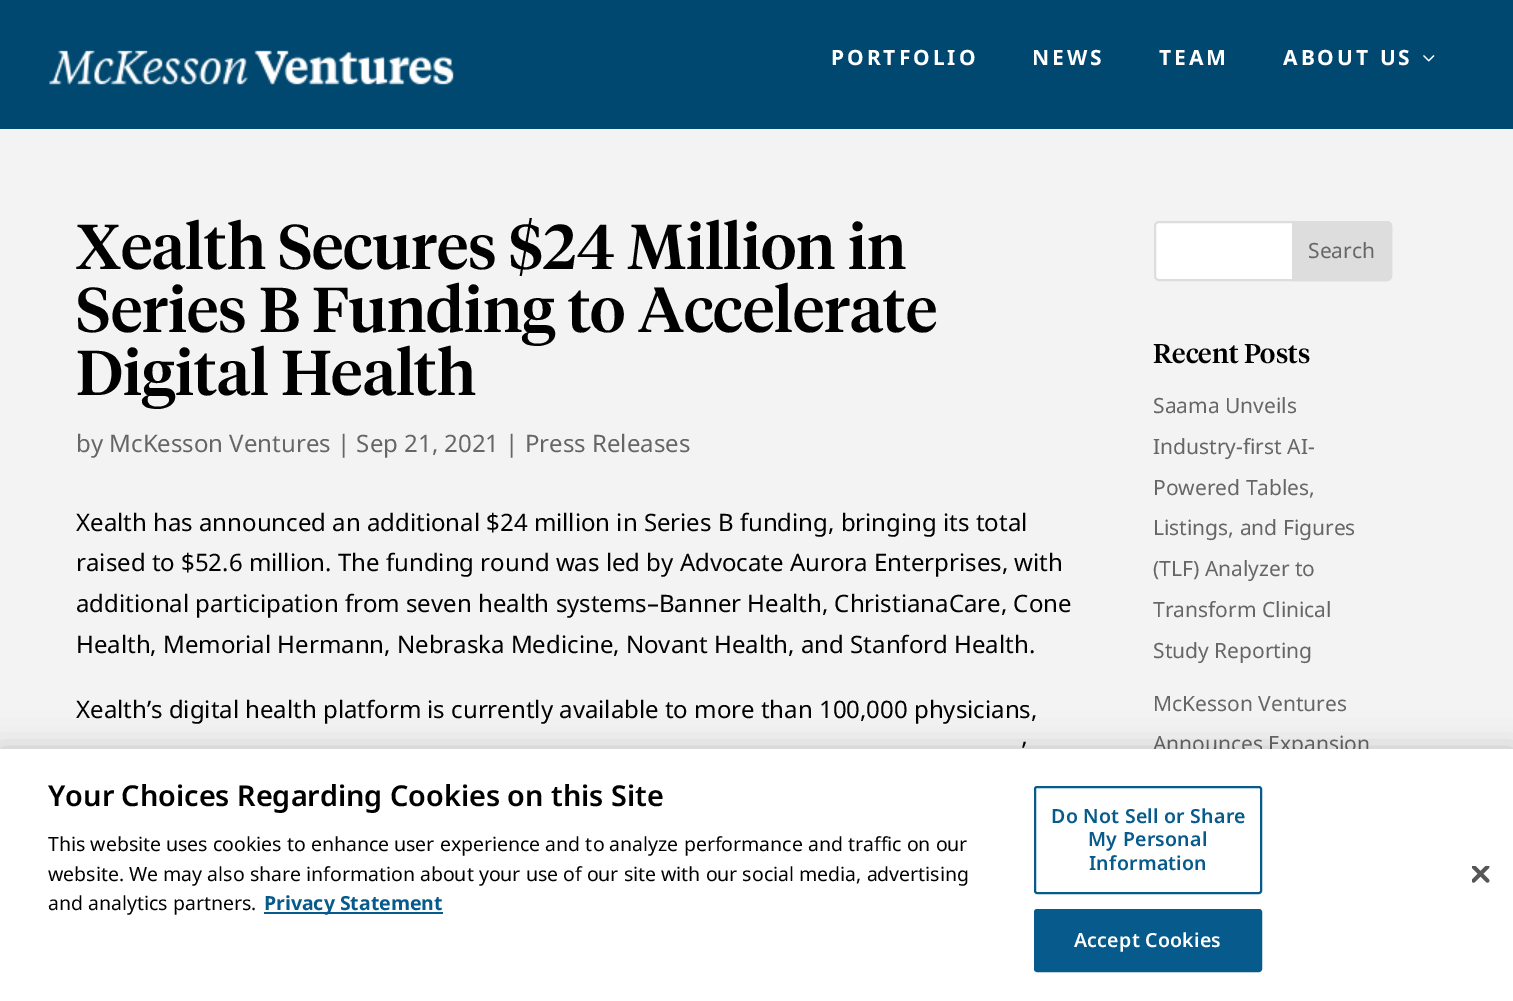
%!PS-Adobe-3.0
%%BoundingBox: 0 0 1513 1001
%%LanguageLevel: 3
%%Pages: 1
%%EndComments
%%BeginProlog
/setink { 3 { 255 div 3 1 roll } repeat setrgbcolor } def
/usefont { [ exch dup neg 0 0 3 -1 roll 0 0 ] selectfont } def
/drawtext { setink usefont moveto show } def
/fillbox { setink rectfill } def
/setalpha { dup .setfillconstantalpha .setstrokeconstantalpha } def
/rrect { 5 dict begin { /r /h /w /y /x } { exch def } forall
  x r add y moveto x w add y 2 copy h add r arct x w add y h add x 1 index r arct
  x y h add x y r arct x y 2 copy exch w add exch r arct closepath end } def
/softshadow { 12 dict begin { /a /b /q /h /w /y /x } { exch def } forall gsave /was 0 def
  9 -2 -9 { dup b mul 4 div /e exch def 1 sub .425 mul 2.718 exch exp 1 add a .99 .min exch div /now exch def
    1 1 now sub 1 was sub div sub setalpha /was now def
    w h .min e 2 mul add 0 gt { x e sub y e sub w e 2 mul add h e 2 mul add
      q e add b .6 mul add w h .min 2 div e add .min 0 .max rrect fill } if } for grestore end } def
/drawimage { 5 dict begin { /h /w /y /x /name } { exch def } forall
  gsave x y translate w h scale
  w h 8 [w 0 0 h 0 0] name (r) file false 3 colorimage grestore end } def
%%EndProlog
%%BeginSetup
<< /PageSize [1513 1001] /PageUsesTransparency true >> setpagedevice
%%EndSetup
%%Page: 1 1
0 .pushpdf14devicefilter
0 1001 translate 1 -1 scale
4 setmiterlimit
0 0 1513 1001 243 243 243 fillbox
0 0 1513 129 0 72 112 fillbox
(assets/img1.rgb) 49 50 405 35 drawimage
/NotoSans-Bold 21 usefont
255 255 255 setink
831 65 moveto 3 0 (PORTFOLIO) ashow
1032 65 moveto 3 0 (NEWS) ashow
1159 65 moveto 3 0 (TEAM) ashow
1283 65 moveto 3 0 (ABOUT US) ashow
(assets/img2.rgb) 1423 55 12 7 drawimage
(Xealth Secures $24 Million in) 76 269 /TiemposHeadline-Medium 63 0 0 0 drawtext
(Series B Funding to Accelerate) 76 332 /TiemposHeadline-Medium 63 0 0 0 drawtext
(Digital Health) 76 395 /TiemposHeadline-Medium 63 0 0 0 drawtext
(by McKesson Ventures | Sep 21, 2021 | Press Releases) 76 452 /NotoSans-Regular 24 102 102 102 drawtext
(Xealth has announced an additional $24 million in Series B funding, bringing its total) 76 531 /NotoSans-Regular 24 0 0 0 drawtext
(raised to $52.6 million. The funding round was led by Advocate Aurora Enterprises, with) 76 571 /NotoSans-Regular 24 0 0 0 drawtext
(additional participation from seven health systems–Banner Health, ChristianaCare, Cone) 76 612 /NotoSans-Regular 24 0 0 0 drawtext
(Health, Memorial Hermann, Nebraska Medicine, Novant Health, and Stanford Health.) 76 653 /NotoSans-Regular 24 0 0 0 drawtext
(Xealth’s digital health platform is currently available to more than 100,000 physicians,) 76 718 /NotoSans-Regular 24 0 0 0 drawtext
(’) 1022 759 /NotoSans-Regular 24 0 0 0 drawtext
255 255 255 setink
1155 222 236 58 4 rrect gsave fill grestore
221 221 221 setink
2 setlinewidth
stroke
1293 222 moveto 1387 222 lineto 1389 222 1391 224 1391 226 curveto 1391 276 lineto 1391 278 1389 280 1387 280 curveto 1293 280 lineto closepath gsave fill grestore
stroke
(Search) 1308 258 /NotoSans-Regular 21 102 102 102 drawtext
(Recent Posts) 1153 363 /TiemposHeadline-Medium 27 0 0 0 drawtext
(Saama Unveils) 1153 413 /NotoSans-Regular 21 102 102 102 drawtext
(Industry-first AI-) 1153 454 /NotoSans-Regular 21 102 102 102 drawtext
(Powered Tables,) 1153 495 /NotoSans-Regular 21 102 102 102 drawtext
(Listings, and Figures) 1153 535 /NotoSans-Regular 21 102 102 102 drawtext
(\(TLF\) Analyzer to) 1153 576 /NotoSans-Regular 21 102 102 102 drawtext
(Transform Clinical) 1153 617 /NotoSans-Regular 21 102 102 102 drawtext
(Study Reporting) 1153 658 /NotoSans-Regular 21 102 102 102 drawtext
(McKesson Ventures) 1153 711 /NotoSans-Regular 21 102 102 102 drawtext
(Announces Expansion) 1153 751 /NotoSans-Regular 21 102 102 102 drawtext
0 0 0 setink
0 749 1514 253 0 13.5 0.2 softshadow
0 749 1513 252 255 255 255 fillbox
(Your Choices Regarding Cookies on this Site) 48 806 /NotoSans-SemiBold 28.8 0 0 0 drawtext
(This website uses cookies to enhance user experience and to analyze performance and traffic on our) 48 851 /NotoSans-Regular 19.5 0 0 0 drawtext
(website. We may also share information about your use of our site with our social media, advertising) 48 881 /NotoSans-Regular 19.5 0 0 0 drawtext
(and analytics partners.) 48 910 /NotoSans-Regular 19.5 0 0 0 drawtext
264 912 179 2 7 91 140 fillbox
(Privacy Statement) 264 910 /NotoSans-Bold 19.5 7 91 140 drawtext
1035 787 226 106 2 rrect stroke
/NotoSans-SemiBold 19.5 usefont
1051 823 moveto 0.25 0 (Do Not Sell or Share) ashow
1088 846 moveto 0.25 0 (My Personal) ashow
1089 870 moveto 0.25 0 (Information) ashow
1035 910 226 61 2 rrect gsave fill grestore
stroke
255 255 255 setink
1074 947 moveto 0.25 0 (Accept Cookies) ashow
(assets/img3.rgb) 1472 866 18 17 drawimage
.poppdf14devicefilter showpage
%%EOF
